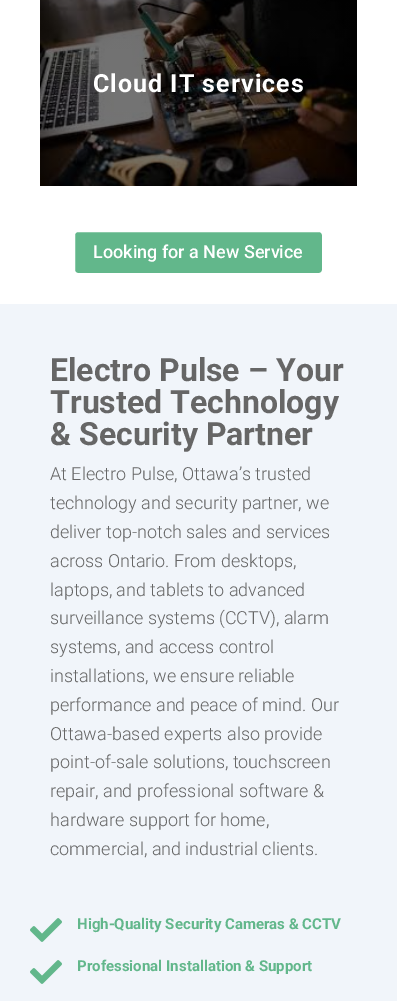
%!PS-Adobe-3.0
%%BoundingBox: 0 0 397 1001
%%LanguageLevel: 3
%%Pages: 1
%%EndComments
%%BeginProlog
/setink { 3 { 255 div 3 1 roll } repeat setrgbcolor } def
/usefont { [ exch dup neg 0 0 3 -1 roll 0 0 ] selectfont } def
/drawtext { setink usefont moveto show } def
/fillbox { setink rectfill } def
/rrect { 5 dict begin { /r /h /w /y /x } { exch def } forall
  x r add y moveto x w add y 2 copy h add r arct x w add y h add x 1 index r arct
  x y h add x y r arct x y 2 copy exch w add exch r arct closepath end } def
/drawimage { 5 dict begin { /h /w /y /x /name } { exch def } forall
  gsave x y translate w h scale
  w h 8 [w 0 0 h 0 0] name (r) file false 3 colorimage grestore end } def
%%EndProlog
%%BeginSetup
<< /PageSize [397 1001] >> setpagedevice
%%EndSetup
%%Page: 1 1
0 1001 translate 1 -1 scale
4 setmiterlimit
0 0 397 1001 255 255 255 fillbox
(assets/img1.rgb) 40 0 317 186 drawimage
/Roboto-Bold 25 usefont
93 92 moveto 1 0 (Cloud IT services) ashow
98 183 139 setink
74 231 249 43 4 rrect gsave fill grestore
255 255 255 setink
2 setlinewidth
stroke
(Looking for a New Service) 93 258 /Roboto-Medium 18 255 255 255 drawtext
0 304 397 697 241 245 250 fillbox
(Electro Pulse – Your) 50 381 /Roboto-Bold 32 102 102 102 drawtext
(Trusted Technology) 50 413 /Roboto-Bold 32 102 102 102 drawtext
(& Security Partner) 50 445 /Roboto-Bold 32 102 102 102 drawtext
(At Electro Pulse, Ottawa’s trusted) 50 480 /Roboto-Light 18 102 102 102 drawtext
(technology and security partner, we) 50 509 /Roboto-Light 18 102 102 102 drawtext
(deliver top-notch sales and services) 50 538 /Roboto-Light 18 102 102 102 drawtext
(across Ontario. From desktops,) 50 567 /Roboto-Light 18 102 102 102 drawtext
(laptops, and tablets to advanced) 50 596 /Roboto-Light 18 102 102 102 drawtext
(surveillance systems \(CCTV\), alarm) 50 624 /Roboto-Light 18 102 102 102 drawtext
(systems, and access control) 50 653 /Roboto-Light 18 102 102 102 drawtext
(installations, we ensure reliable) 50 682 /Roboto-Light 18 102 102 102 drawtext
(performance and peace of mind. Our) 50 711 /Roboto-Light 18 102 102 102 drawtext
(Ottawa-based experts also provide) 50 740 /Roboto-Light 18 102 102 102 drawtext
(point-of-sale solutions, touchscreen) 50 768 /Roboto-Light 18 102 102 102 drawtext
(repair, and professional software &) 50 797 /Roboto-Light 18 102 102 102 drawtext
(hardware support for home,) 50 826 /Roboto-Light 18 102 102 102 drawtext
(commercial, and industrial clients.) 50 855 /Roboto-Light 18 102 102 102 drawtext
(assets/img2.rgb) 30 918 32 24 drawimage
(High-Quality Security Cameras & CCTV) 77 929 /Roboto-Bold 15 98 183 139 drawtext
(assets/img2.rgb) 30 960 32 24 drawimage
(Professional Installation & Support) 77 971 /Roboto-Bold 15 98 183 139 drawtext
showpage
%%EOF
